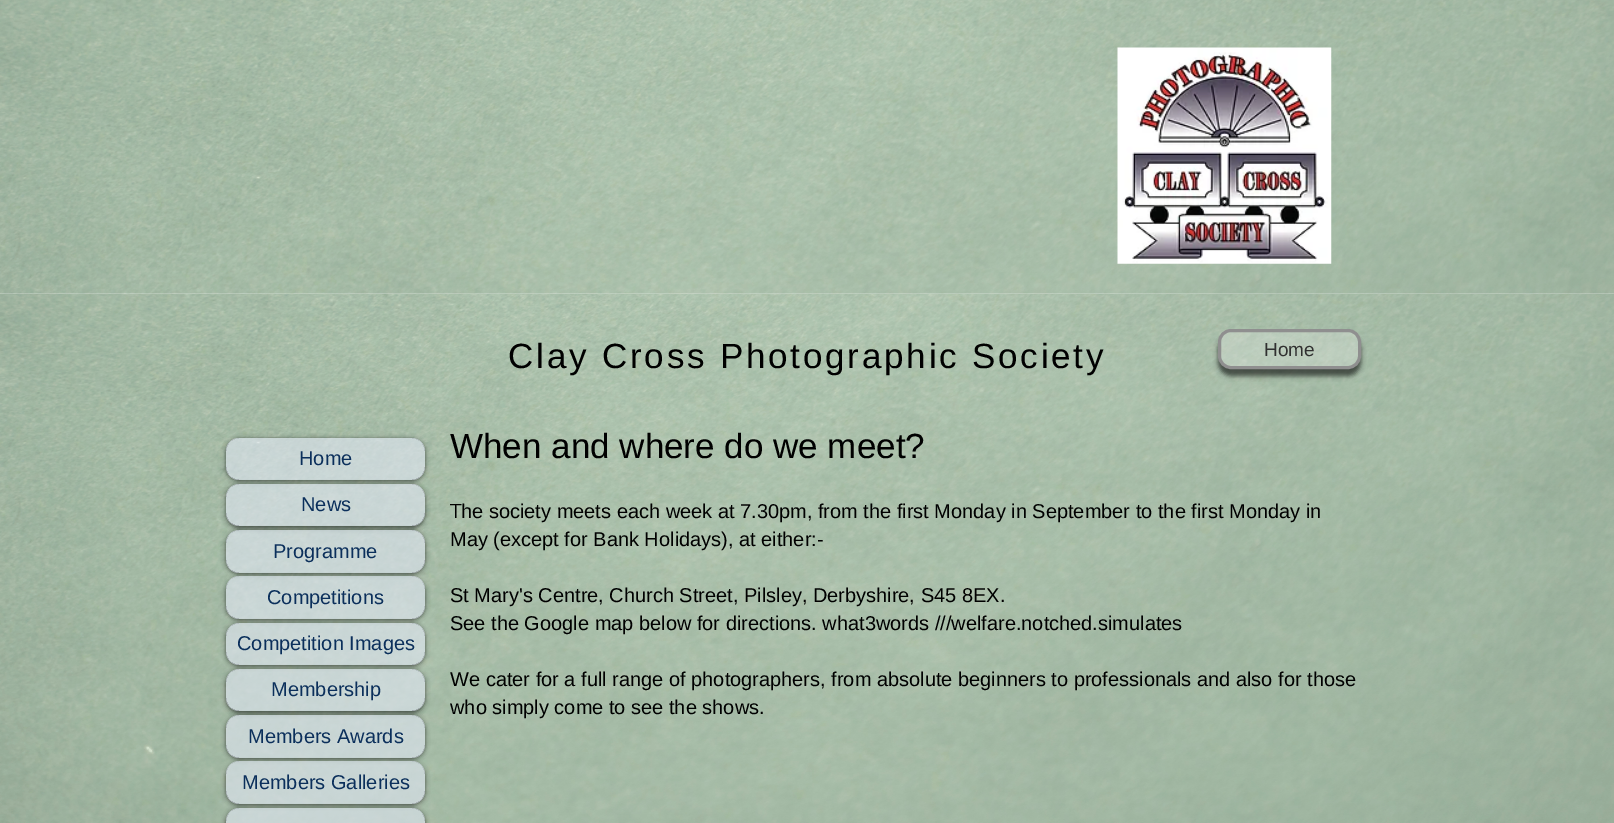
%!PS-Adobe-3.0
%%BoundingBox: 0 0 1614 823
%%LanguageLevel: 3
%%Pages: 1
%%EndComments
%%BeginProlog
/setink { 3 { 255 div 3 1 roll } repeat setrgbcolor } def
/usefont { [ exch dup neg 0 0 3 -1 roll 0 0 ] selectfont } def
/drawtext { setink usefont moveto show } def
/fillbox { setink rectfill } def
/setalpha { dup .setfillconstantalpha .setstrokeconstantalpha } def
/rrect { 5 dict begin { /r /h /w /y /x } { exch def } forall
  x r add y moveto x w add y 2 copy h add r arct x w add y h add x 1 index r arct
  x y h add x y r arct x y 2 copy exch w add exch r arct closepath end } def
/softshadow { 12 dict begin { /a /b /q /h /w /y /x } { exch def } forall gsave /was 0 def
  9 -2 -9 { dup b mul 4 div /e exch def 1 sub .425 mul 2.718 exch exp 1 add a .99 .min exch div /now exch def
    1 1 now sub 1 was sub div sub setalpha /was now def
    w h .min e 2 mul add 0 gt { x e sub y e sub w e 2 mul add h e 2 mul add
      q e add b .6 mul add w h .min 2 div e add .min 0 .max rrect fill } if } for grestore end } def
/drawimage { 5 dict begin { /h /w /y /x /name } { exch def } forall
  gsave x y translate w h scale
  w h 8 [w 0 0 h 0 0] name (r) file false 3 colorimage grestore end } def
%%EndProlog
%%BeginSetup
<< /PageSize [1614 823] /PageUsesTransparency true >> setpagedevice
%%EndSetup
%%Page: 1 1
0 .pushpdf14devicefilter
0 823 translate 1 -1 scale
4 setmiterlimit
0 0 1614 823 255 255 255 fillbox
(assets/img1.rgb) 0 293 1614 530 drawimage
(assets/img4.rgb) 0 293 1609 1 drawimage
(assets/img2.rgb) 0 0 1614 294 drawimage
(assets/img3.rgb) 1117 47 215 217 drawimage
/LiberationSans-Regular 35 usefont
0 0 0 setink
508 368 moveto 2.8 0 (Clay Cross Photographic Society) ashow
gsave
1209 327 moveto 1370 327 lineto 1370 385 lineto 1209 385 lineto closepath 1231 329 moveto 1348 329 lineto 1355 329 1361 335 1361 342 curveto 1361 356 lineto 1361 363 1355 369 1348 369 curveto 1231 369 lineto 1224 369 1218 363 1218 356 curveto 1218 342 lineto 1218 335 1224 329 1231 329 curveto closepath eoclip newpath
1218 336 143 40 13 2.5 0.6 softshadow
grestore
0.23 setalpha
255 255 255 setink
1219.5 330.5 140 37 11.5 rrect fill
1 setalpha
143 143 143 setink
3 setlinewidth
1219.5 330.5 140 37 11.5 rrect stroke
(Home) 1264 356 /LiberationSans-Regular 19 48 48 48 drawtext
gsave
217 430 moveto 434 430 lineto 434 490 lineto 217 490 lineto closepath 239 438 moveto 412 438 lineto 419 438 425 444 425 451 curveto 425 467 lineto 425 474 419 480 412 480 curveto 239 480 lineto 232 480 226 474 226 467 curveto 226 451 lineto 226 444 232 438 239 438 curveto closepath eoclip newpath
0 0 0 setink
226 439 199 42 13 2.5 0.6 softshadow
grestore
0.56 setalpha
229 235 250 setink
226 438 199 42 13 rrect fill
1 setalpha
(Home) 299 465 /LiberationSans-Regular 20 11 47 91 drawtext
gsave
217 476 moveto 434 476 lineto 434 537 lineto 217 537 lineto closepath 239 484 moveto 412 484 lineto 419 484 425 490 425 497 curveto 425 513 lineto 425 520 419 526 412 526 curveto 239 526 lineto 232 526 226 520 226 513 curveto 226 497 lineto 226 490 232 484 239 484 curveto closepath eoclip newpath
0 0 0 setink
226 485 199 43 13 2.5 0.6 softshadow
grestore
0.56 setalpha
229 235 250 setink
226 484 199 42 13 rrect fill
1 setalpha
(News) 301 511 /LiberationSans-Regular 20 11 47 91 drawtext
gsave
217 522 moveto 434 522 lineto 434 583 lineto 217 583 lineto closepath 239 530 moveto 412 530 lineto 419 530 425 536 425 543 curveto 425 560 lineto 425 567 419 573 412 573 curveto 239 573 lineto 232 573 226 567 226 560 curveto 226 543 lineto 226 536 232 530 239 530 curveto closepath eoclip newpath
0 0 0 setink
226 531 199 43 13 2.5 0.6 softshadow
grestore
0.56 setalpha
229 235 250 setink
226 530 199 43 13 rrect fill
1 setalpha
(Programme) 273 558 /LiberationSans-Regular 20 11 47 91 drawtext
gsave
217 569 moveto 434 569 lineto 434 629 lineto 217 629 lineto closepath 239 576 moveto 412 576 lineto 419 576 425 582 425 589 curveto 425 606 lineto 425 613 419 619 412 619 curveto 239 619 lineto 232 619 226 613 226 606 curveto 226 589 lineto 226 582 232 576 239 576 curveto closepath eoclip newpath
0 0 0 setink
226 578 199 42 13 2.5 0.6 softshadow
grestore
0.56 setalpha
229 235 250 setink
226 576 199 43 13 rrect fill
1 setalpha
(Competitions) 267 604 /LiberationSans-Regular 20 11 47 91 drawtext
gsave
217 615 moveto 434 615 lineto 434 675 lineto 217 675 lineto closepath 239 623 moveto 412 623 lineto 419 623 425 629 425 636 curveto 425 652 lineto 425 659 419 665 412 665 curveto 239 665 lineto 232 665 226 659 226 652 curveto 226 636 lineto 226 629 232 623 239 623 curveto closepath eoclip newpath
0 0 0 setink
226 624 199 42 13 2.5 0.6 softshadow
grestore
0.56 setalpha
229 235 250 setink
226 623 199 42 13 rrect fill
1 setalpha
(Competition Images) 237 650 /LiberationSans-Regular 20 11 47 91 drawtext
gsave
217 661 moveto 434 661 lineto 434 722 lineto 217 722 lineto closepath 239 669 moveto 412 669 lineto 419 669 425 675 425 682 curveto 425 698 lineto 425 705 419 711 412 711 curveto 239 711 lineto 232 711 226 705 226 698 curveto 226 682 lineto 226 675 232 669 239 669 curveto closepath eoclip newpath
0 0 0 setink
226 670 199 43 13 2.5 0.6 softshadow
grestore
0.56 setalpha
229 235 250 setink
226 669 199 42 13 rrect fill
1 setalpha
(Membership) 271 696 /LiberationSans-Regular 20 11 47 91 drawtext
gsave
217 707 moveto 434 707 lineto 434 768 lineto 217 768 lineto closepath 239 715 moveto 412 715 lineto 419 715 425 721 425 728 curveto 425 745 lineto 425 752 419 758 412 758 curveto 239 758 lineto 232 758 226 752 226 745 curveto 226 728 lineto 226 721 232 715 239 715 curveto closepath eoclip newpath
0 0 0 setink
226 716 199 43 13 2.5 0.6 softshadow
grestore
0.56 setalpha
229 235 250 setink
226 715 199 43 13 rrect fill
1 setalpha
(Members Awards) 248 743 /LiberationSans-Regular 20 11 47 91 drawtext
gsave
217 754 moveto 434 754 lineto 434 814 lineto 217 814 lineto closepath 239 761 moveto 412 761 lineto 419 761 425 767 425 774 curveto 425 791 lineto 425 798 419 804 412 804 curveto 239 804 lineto 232 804 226 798 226 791 curveto 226 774 lineto 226 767 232 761 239 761 curveto closepath eoclip newpath
0 0 0 setink
226 763 199 42 13 2.5 0.6 softshadow
grestore
0.56 setalpha
229 235 250 setink
226 761 199 43 13 rrect fill
1 setalpha
(Members Galleries) 242 789 /LiberationSans-Regular 20 11 47 91 drawtext
gsave
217 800 moveto 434 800 lineto 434 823 lineto 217 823 lineto closepath 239 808 moveto 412 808 lineto 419 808 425 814 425 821 curveto 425 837 lineto 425 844 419 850 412 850 curveto 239 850 lineto 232 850 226 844 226 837 curveto 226 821 lineto 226 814 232 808 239 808 curveto closepath eoclip newpath
0 0 0 setink
226 809 199 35 13 2.5 0.6 softshadow
grestore
0.56 setalpha
229 235 250 setink
226 808 199 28 13 rrect fill
1 setalpha
(When and where do we meet?) 450 458 /LiberationSans-Regular 35 0 0 0 drawtext
(T) 450 518 /Montserrat-Regular 20 0 0 0 drawtext
(he society meets each week at 7.30pm, from the first Monday in September to the first Monday in) 461 518 /LiberationSans-Regular 20 0 0 0 drawtext
(May \(except for Bank Holidays\), at either:-) 450 546 /LiberationSans-Regular 20 0 0 0 drawtext
(St Mary's Centre, Church Street, Pilsley, Derbyshire, S45 8EX.) 450 602 /LiberationSans-Regular 20 0 0 0 drawtext
(See the Google map below for directions. what3words ///welfare.notched.simulates) 450 630 /LiberationSans-Regular 20 0 0 0 drawtext
(We cater for a full range of photographers, from absolute beginners to professionals and also for those) 450 686 /LiberationSans-Regular 20 0 0 0 drawtext
(who simply come to see the shows.) 450 714 /LiberationSans-Regular 20 0 0 0 drawtext
.poppdf14devicefilter showpage
%%EOF
